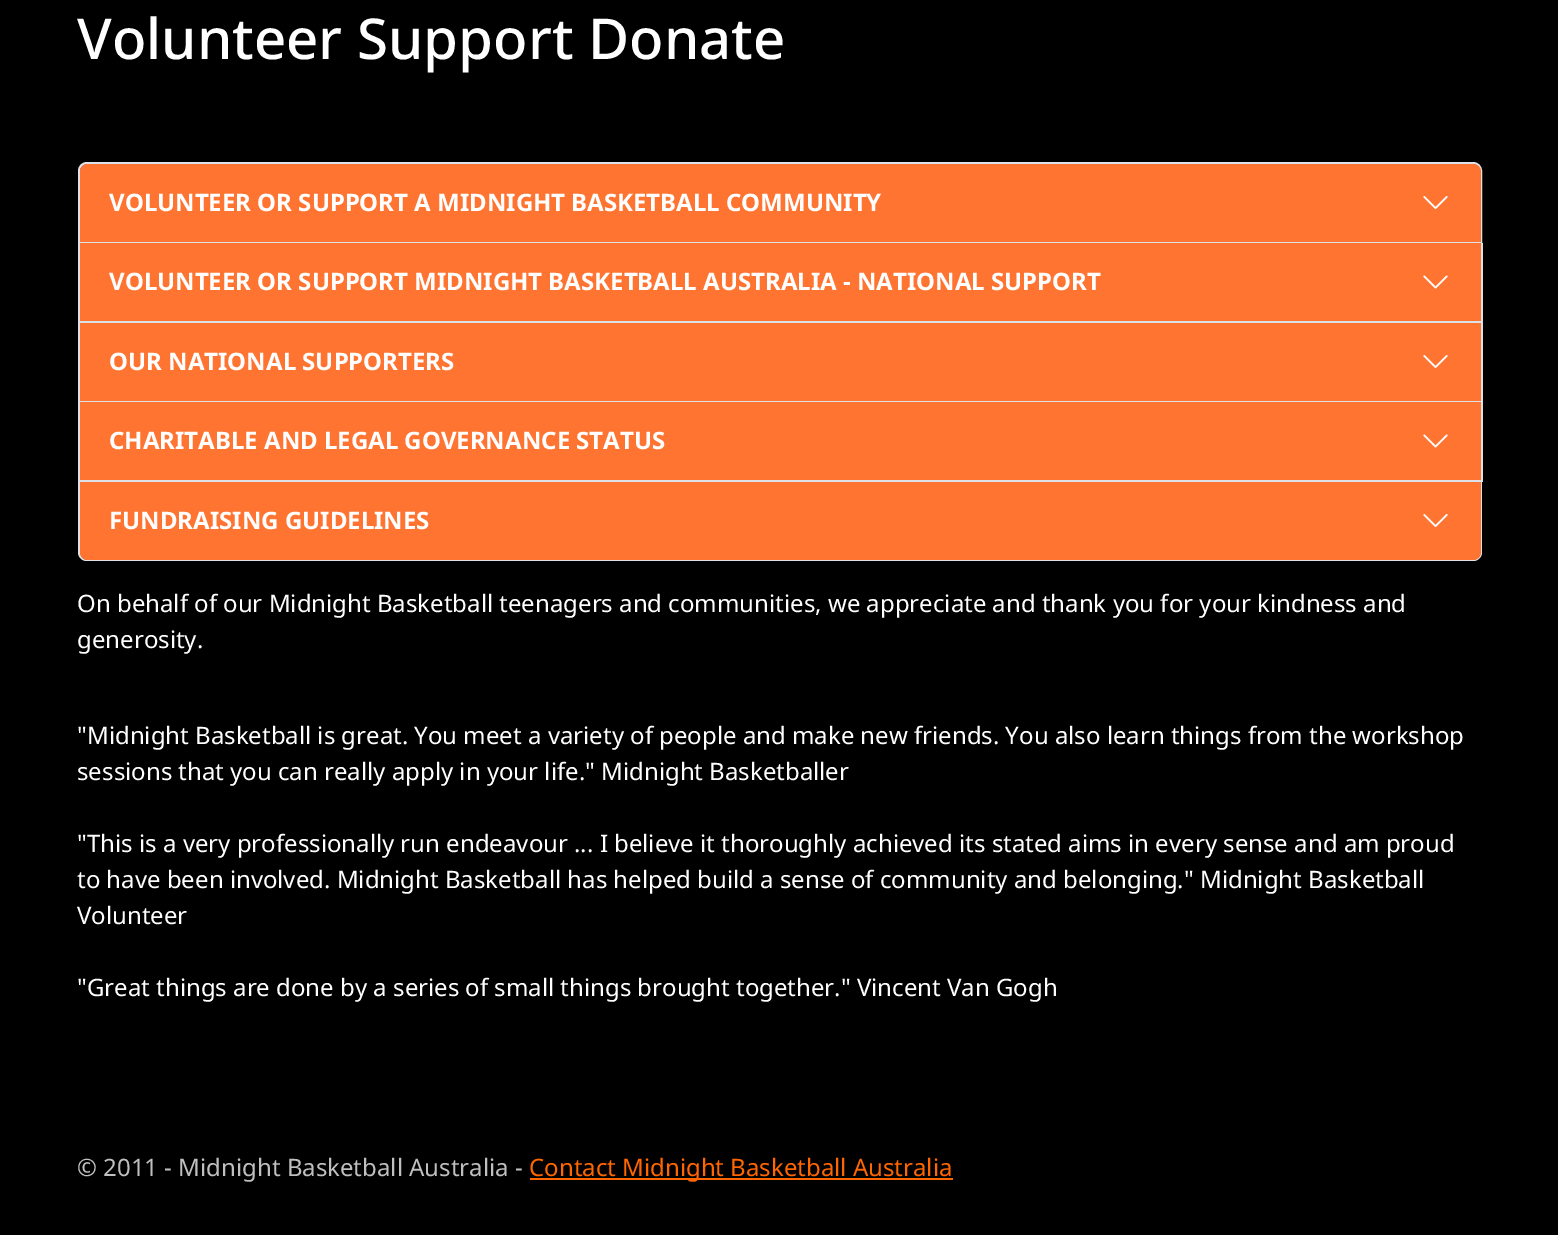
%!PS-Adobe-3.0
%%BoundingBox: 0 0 1558 1235
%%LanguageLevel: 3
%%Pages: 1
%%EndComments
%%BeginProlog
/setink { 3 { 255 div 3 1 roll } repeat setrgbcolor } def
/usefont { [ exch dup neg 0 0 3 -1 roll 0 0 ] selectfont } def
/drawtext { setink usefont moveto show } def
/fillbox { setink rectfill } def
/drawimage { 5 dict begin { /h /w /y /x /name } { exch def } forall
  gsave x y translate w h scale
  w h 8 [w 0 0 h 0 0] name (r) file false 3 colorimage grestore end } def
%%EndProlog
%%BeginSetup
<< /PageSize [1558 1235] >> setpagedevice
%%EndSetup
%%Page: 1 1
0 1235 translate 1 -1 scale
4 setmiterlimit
0 0 1558 1235 0 0 0 fillbox
(Volunteer Support Donate) 77 59 /NotoSans-Medium 56.4 255 255 255 drawtext
73 80 87 setink
87 163 moveto 1473 163 lineto 1477.5 163 1481 166.5 1481 171 curveto 1481 242 lineto 79 242 lineto 79 171 lineto 79 166.5 82.5 163 87 163 curveto closepath gsave fill grestore
222 226 230 setink
2 setlinewidth
stroke
255 116 49 setink
88 164 moveto 1473 164 lineto 1477.5 164 1481 167.5 1481 172 curveto 1481 242 lineto 80 242 lineto 80 172 lineto 80 167.5 83.5 164 88 164 curveto closepath fill
(VOLUNTEER OR SUPPORT A MIDNIGHT BASKETBALL COMMUNITY) 109 211 /NotoSans-Bold 24 255 255 255 drawtext
(assets/img1.rgb) 1423 196 25 13 drawimage
1481 243 2 239 222 226 230 fillbox
78 321 1404 2 222 226 230 fillbox
78 243 2 80 222 226 230 fillbox
80 243 1401 78 255 116 49 fillbox
(VOLUNTEER OR SUPPORT MIDNIGHT BASKETBALL AUSTRALIA - NATIONAL SUPPORT) 109 290 /NotoSans-Bold 24 255 255 255 drawtext
(assets/img2.rgb) 1423 275 25 14 drawimage
78 401 1404 1 222 226 230 fillbox
78 323 2 79 222 226 230 fillbox
80 323 1401 78 255 116 49 fillbox
(OUR NATIONAL SUPPORTERS) 109 370 /NotoSans-Bold 24 255 255 255 drawtext
(assets/img1.rgb) 1423 355 25 13 drawimage
78 480 1404 2 222 226 230 fillbox
78 402 2 80 222 226 230 fillbox
80 402 1401 78 255 116 49 fillbox
(CHARITABLE AND LEGAL GOVERNANCE STATUS) 109 449 /NotoSans-Bold 24 255 255 255 drawtext
(assets/img2.rgb) 1423 434 25 14 drawimage
73 80 87 setink
78 482 moveto 1482 482 lineto 1482 552 lineto 1482 557 1478 561 1473 561 curveto 87 561 lineto 82 561 78 557 78 552 curveto closepath fill
222 226 230 setink
78 482 moveto 1482 482 lineto 1482 552 lineto 1482 557 1478 561 1473 561 curveto 87 561 lineto 82 561 78 557 78 552 curveto closepath 80 482 moveto 1480 482 lineto 1480 552 lineto 1480 556 1477 560 1473 560 curveto 87 560 lineto 83 560 80 556 80 552 curveto closepath eofill
255 116 49 setink
80 482 moveto 1481 482 lineto 1481 552 lineto 1481 556.5 1477.5 560 1473 560 curveto 88 560 lineto 83.5 560 80 556.5 80 552 curveto closepath fill
(FUNDRAISING GUIDELINES) 109 529 /NotoSans-Bold 24 255 255 255 drawtext
(assets/img1.rgb) 1423 514 25 13 drawimage
(On behalf of our Midnight Basketball teenagers and communities, we appreciate and thank you for your kindness and) 77 612 /NotoSans-Regular 24 255 255 255 drawtext
(generosity.) 77 648 /NotoSans-Regular 24 255 255 255 drawtext
("Midnight Basketball is great. You meet a variety of people and make new friends. You also learn things from the workshop) 77 744 /NotoSans-Regular 24 255 255 255 drawtext
(sessions that you can really apply in your life." Midnight Basketballer) 77 780 /NotoSans-Regular 24 255 255 255 drawtext
("This is a very professionally run endeavour ... I believe it thoroughly achieved its stated aims in every sense and am proud) 77 852 /NotoSans-Regular 24 255 255 255 drawtext
(to have been involved. Midnight Basketball has helped build a sense of community and belonging." Midnight Basketball) 77 888 /NotoSans-Regular 24 255 255 255 drawtext
(Volunteer) 77 924 /NotoSans-Regular 24 255 255 255 drawtext
("Great things are done by a series of small things brought together." Vincent Van Gogh) 77 996 /NotoSans-Regular 24 255 255 255 drawtext
(© 2011 - Midnight Basketball Australia -) 77 1176 /NotoSans-Regular 24 191 191 191 drawtext
530 1178 423 2 255 102 0 fillbox
(Contact Midnight Basketball Australia) 529 1176 /NotoSans-Regular 24 255 102 0 drawtext
showpage
%%EOF
